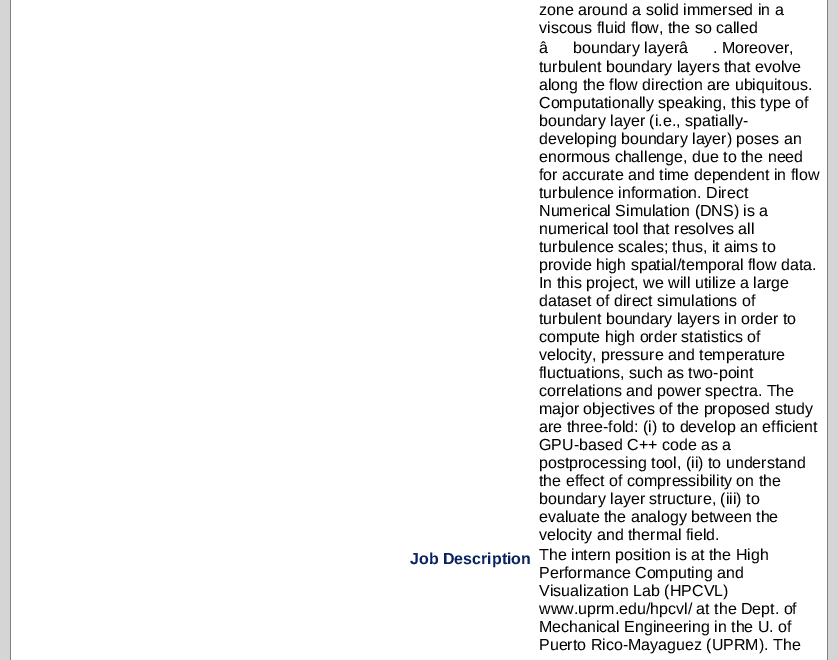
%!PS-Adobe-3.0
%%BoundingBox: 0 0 838 660
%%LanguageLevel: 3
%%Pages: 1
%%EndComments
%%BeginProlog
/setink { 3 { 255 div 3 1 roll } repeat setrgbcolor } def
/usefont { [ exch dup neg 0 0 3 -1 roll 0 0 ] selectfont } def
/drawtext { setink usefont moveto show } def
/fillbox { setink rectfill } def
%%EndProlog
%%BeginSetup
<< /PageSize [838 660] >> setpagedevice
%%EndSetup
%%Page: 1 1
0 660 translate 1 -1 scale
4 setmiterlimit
0 0 838 660 213 213 213 fillbox
11 0 816 660 255 255 255 fillbox
827 0 1 660 128 128 128 fillbox
10 0 1 660 128 128 128 fillbox
(zone around a solid immersed in a) 539 15 /LiberationSans-Regular 16 0 0 0 drawtext
(viscous fluid flow, the so called) 539 33 /LiberationSans-Regular 16 0 0 0 drawtext
(â) 539 53 /LiberationSans-Regular 16 0 0 0 drawtext
(boundary layerâ) 573 53 /LiberationSans-Regular 16 0 0 0 drawtext
(. Moreover,) 713 53 /LiberationSans-Regular 16 0 0 0 drawtext
(turbulent boundary layers that evolve) 539 72 /LiberationSans-Regular 16 0 0 0 drawtext
(along the flow direction are ubiquitous.) 539 90 /LiberationSans-Regular 16 0 0 0 drawtext
(Computationally speaking, this type of) 539 108 /LiberationSans-Regular 16 0 0 0 drawtext
(boundary layer \(i.e., spatially-) 539 126 /LiberationSans-Regular 16 0 0 0 drawtext
(developing boundary layer\) poses an) 539 144 /LiberationSans-Regular 16 0 0 0 drawtext
(enormous challenge, due to the need) 539 162 /LiberationSans-Regular 16 0 0 0 drawtext
(for accurate and time dependent in flow) 539 180 /LiberationSans-Regular 16 0 0 0 drawtext
(turbulence information. Direct) 539 198 /LiberationSans-Regular 16 0 0 0 drawtext
(Numerical Simulation \(DNS\) is a) 539 216 /LiberationSans-Regular 16 0 0 0 drawtext
(numerical tool that resolves all) 539 234 /LiberationSans-Regular 16 0 0 0 drawtext
(turbulence scales; thus, it aims to) 539 252 /LiberationSans-Regular 16 0 0 0 drawtext
(provide high spatial/temporal flow data.) 539 270 /LiberationSans-Regular 16 0 0 0 drawtext
(In this project, we will utilize a large) 539 288 /LiberationSans-Regular 16 0 0 0 drawtext
(dataset of direct simulations of) 539 306 /LiberationSans-Regular 16 0 0 0 drawtext
(turbulent boundary layers in order to) 539 324 /LiberationSans-Regular 16 0 0 0 drawtext
(compute high order statistics of) 539 342 /LiberationSans-Regular 16 0 0 0 drawtext
(velocity, pressure and temperature) 539 360 /LiberationSans-Regular 16 0 0 0 drawtext
(fluctuations, such as two-point) 539 378 /LiberationSans-Regular 16 0 0 0 drawtext
(correlations and power spectra. The) 539 396 /LiberationSans-Regular 16 0 0 0 drawtext
(major objectives of the proposed study) 539 414 /LiberationSans-Regular 16 0 0 0 drawtext
(are three-fold: \(i\) to develop an efficient) 539 432 /LiberationSans-Regular 16 0 0 0 drawtext
(GPU-based C++ code as a) 539 450 /LiberationSans-Regular 16 0 0 0 drawtext
(postprocessing tool, \(ii\) to understand) 539 468 /LiberationSans-Regular 16 0 0 0 drawtext
(the effect of compressibility on the) 539 486 /LiberationSans-Regular 16 0 0 0 drawtext
(boundary layer structure, \(iii\) to) 539 504 /LiberationSans-Regular 16 0 0 0 drawtext
(evaluate the analogy between the) 539 522 /LiberationSans-Regular 16 0 0 0 drawtext
(velocity and thermal field.) 539 540 /LiberationSans-Regular 16 0 0 0 drawtext
(Job Description) 410 564 /LiberationSans-Bold 16 9 34 96 drawtext
(The intern position is at the High) 539 560 /LiberationSans-Regular 16 0 0 0 drawtext
(Performance Computing and) 539 578 /LiberationSans-Regular 16 0 0 0 drawtext
(Visualization Lab \(HPCVL\)) 539 596 /LiberationSans-Regular 16 0 0 0 drawtext
(www.uprm.edu/hpcvl/ at the Dept. of) 539 614 /LiberationSans-Regular 16 0 0 0 drawtext
(Mechanical Engineering in the U. of) 539 632 /LiberationSans-Regular 16 0 0 0 drawtext
(Puerto Rico-Mayaguez \(UPRM\). The) 539 650 /LiberationSans-Regular 16 0 0 0 drawtext
showpage
%%EOF
